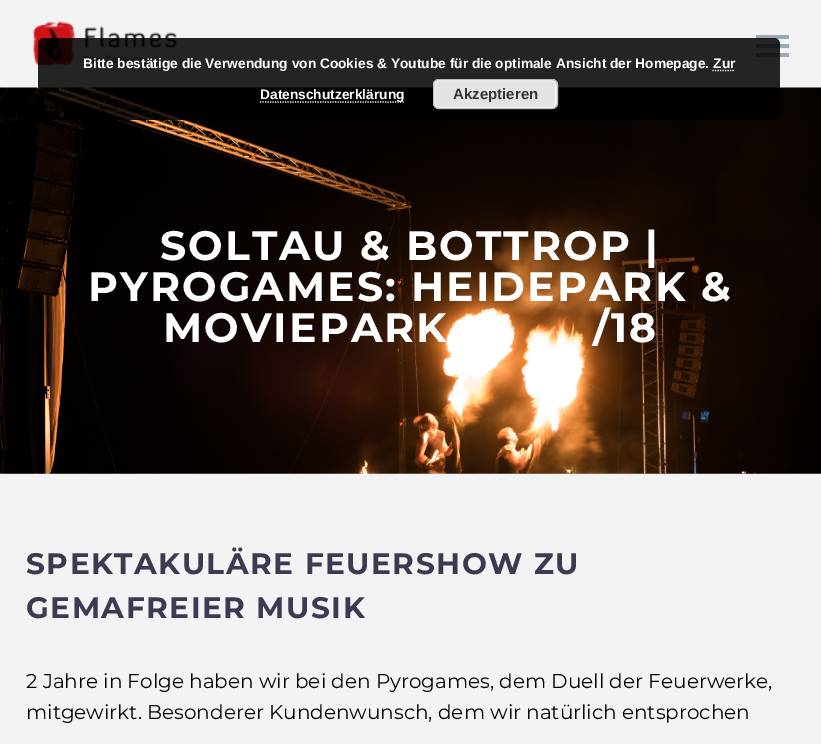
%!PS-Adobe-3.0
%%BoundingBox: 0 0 821 744
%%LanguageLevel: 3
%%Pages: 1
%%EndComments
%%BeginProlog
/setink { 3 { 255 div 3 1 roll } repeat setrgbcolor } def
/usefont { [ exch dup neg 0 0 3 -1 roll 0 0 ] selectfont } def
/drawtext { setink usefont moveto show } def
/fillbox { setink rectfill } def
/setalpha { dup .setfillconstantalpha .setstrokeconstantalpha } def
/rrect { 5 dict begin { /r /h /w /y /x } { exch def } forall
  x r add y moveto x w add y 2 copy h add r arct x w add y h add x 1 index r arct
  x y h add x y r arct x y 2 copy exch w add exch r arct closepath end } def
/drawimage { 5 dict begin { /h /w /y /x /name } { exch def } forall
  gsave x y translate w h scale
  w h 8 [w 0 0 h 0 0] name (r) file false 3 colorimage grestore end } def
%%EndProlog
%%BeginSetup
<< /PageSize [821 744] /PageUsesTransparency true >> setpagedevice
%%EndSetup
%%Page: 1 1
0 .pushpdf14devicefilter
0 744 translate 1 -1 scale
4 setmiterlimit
0 0 821 744 255 255 255 fillbox
(assets/img1.rgb) 0 473 821 1 drawimage
0 0 821 88 243 243 243 fillbox
(assets/img2.rgb) 32 21 146 46 drawimage
756 35 33 4 153 169 181 fillbox
756 44 33 4 153 169 181 fillbox
756 53 33 4 153 169 181 fillbox
(assets/img3.rgb) 0 87 821 387 drawimage
0.85 setalpha
0 0 0 setink
38 38 742 82 6 rrect fill
1 setalpha
(Bitte bestätige die Verwendung von Cookies & Youtube für die optimale Ansicht der Homepage. Zur) 83 68 /LiberationSans-Bold 13.75 255 255 255 drawtext
1.2 setlinewidth
[1.25 1.25] 0 setdash
260 102 moveto 404 102 lineto stroke
(Datenschutzerklärung) 260 99 /LiberationSans-Bold 13.75 255 255 255 drawtext
712.5 70.5 moveto 735 70.5 lineto stroke
227 227 227 setink
433 79 125 30 6 rrect fill
246 246 246 setink
1 setlinewidth
[] 0 setdash
434.5 80.5 121 27 4.5 rrect stroke
187 187 187 setink
433.5 79.5 124 29 5.5 rrect stroke
(Akzeptieren) 453 99 /LiberationSans-Bold 15 51 51 51 drawtext
/Montserrat-Bold 41 usefont
255 255 255 setink
160 260 moveto 2.05 0 (SOLTAU & BOTTROP |) ashow
88 301 moveto 2.05 0 (PYROGAMES: HEIDEPARK &) ashow
163 342 moveto 2.05 0 (MOVIEPARK) ashow
593 342 moveto 2.05 0 (/18) ashow
0 474 821 270 243 243 243 fillbox
/Montserrat-Bold 29.6 usefont
60 57 80 setink
26 574 moveto 1.5 0 (SPEKTAKULÄRE FEUERSHOW ZU) ashow
26 618 moveto 1.5 0 (GEMAFREIER MUSIK) ashow
(2 Jahre in Folge haben wir bei den Pyrogames, dem Duell der Feuerwerke,) 26 688 /Montserrat-Regular 20 5 5 5 drawtext
(mitgewirkt. Besonderer Kundenwunsch, dem wir natürlich entsprochen) 26 719 /Montserrat-Regular 20 5 5 5 drawtext
.poppdf14devicefilter showpage
%%EOF
